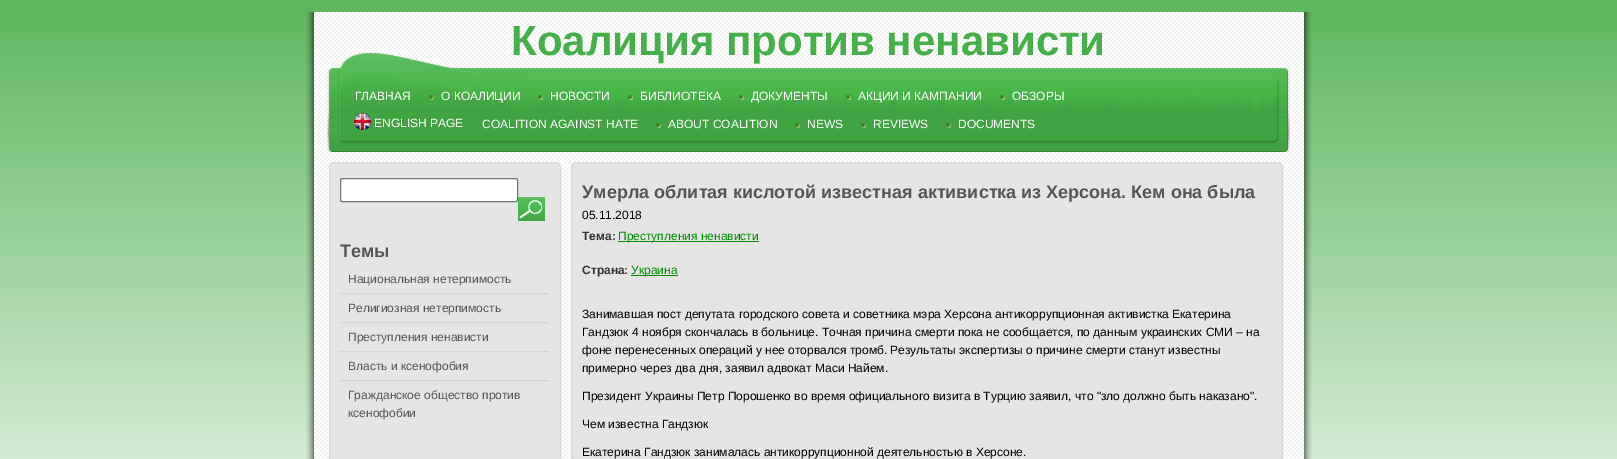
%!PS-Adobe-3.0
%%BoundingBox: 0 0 1617 459
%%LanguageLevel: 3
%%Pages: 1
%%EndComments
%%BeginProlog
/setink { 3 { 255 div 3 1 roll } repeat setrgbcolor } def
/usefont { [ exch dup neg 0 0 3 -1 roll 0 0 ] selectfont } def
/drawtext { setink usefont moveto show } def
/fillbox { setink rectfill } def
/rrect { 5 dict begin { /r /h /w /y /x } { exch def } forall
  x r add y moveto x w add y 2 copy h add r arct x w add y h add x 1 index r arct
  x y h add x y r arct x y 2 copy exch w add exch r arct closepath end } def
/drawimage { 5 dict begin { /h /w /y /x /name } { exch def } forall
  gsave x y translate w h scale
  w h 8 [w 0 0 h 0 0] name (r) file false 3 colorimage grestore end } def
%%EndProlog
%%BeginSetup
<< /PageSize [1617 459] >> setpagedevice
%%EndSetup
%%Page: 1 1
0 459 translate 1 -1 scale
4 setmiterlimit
0 0 1617 459 255 255 255 fillbox
(assets/img1.rgb) 0 0 1617 459 drawimage
(assets/img2.rgb) 306 12 1006 447 drawimage
(assets/img3.rgb) 314 12 990 447 drawimage
(assets/img4.rgb) 327 52 963 100 drawimage
(Коалиция против ненависти) 511 55 /LiberationSans-Bold 42 69 176 73 drawtext
(ГЛАВНАЯ) 355 100 /LiberationSans-Regular 12 255 255 255 drawtext
(assets/img5.rgb) 429 95 5 5 drawimage
(О КОАЛИЦИИ) 441 100 /LiberationSans-Regular 12 255 255 255 drawtext
(assets/img6.rgb) 538 95 5 5 drawimage
(НОВОСТИ) 550 100 /LiberationSans-Regular 12 255 255 255 drawtext
(assets/img7.rgb) 628 95 5 5 drawimage
(БИБЛИОТЕКА) 640 100 /LiberationSans-Regular 12 255 255 255 drawtext
(assets/img8.rgb) 739 95 5 5 drawimage
(ДОКУМЕНТЫ) 751 100 /LiberationSans-Regular 12 255 255 255 drawtext
(assets/img9.rgb) 846 95 5 5 drawimage
(АКЦИИ И КАМПАНИИ) 858 100 /LiberationSans-Regular 12 255 255 255 drawtext
(assets/img10.rgb) 1000 95 5 5 drawimage
(ОБЗОРЫ) 1012 100 /LiberationSans-Regular 12 255 255 255 drawtext
(assets/img11.rgb) 354 113 17 17 drawimage
(ENGLISH PAGE) 374 127 /LiberationSans-Regular 12 255 255 255 drawtext
(COALITION AGAINST HATE) 482 128 /LiberationSans-Regular 12 255 255 255 drawtext
(assets/img12.rgb) 656 123 5 5 drawimage
(ABOUT COALITION) 668 128 /LiberationSans-Regular 12 255 255 255 drawtext
(assets/img12.rgb) 795 123 5 5 drawimage
(NEWS) 807 128 /LiberationSans-Regular 12 255 255 255 drawtext
(assets/img13.rgb) 861 123 5 5 drawimage
(REVIEWS) 873 128 /LiberationSans-Regular 12 255 255 255 drawtext
(assets/img12.rgb) 946 123 5 5 drawimage
(DOCUMENTS) 958 128 /LiberationSans-Regular 12 255 255 255 drawtext
229 229 229 setink
329.5 162.5 231 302 4.5 rrect gsave fill grestore
217 217 217 setink
stroke
255 255 255 setink
340.5 178.5 177 23 1.5 rrect gsave fill grestore
118 118 118 setink
stroke
(assets/img14.rgb) 518 197 27 24 drawimage
(Темы) 340 257 /LiberationSans-Bold 18 85 85 85 drawtext
197 197 197 setink
[1 1] 0 setdash
340 293.5 moveto 550 293.5 lineto stroke
(Национальная нетерпимость) 348 283 /LiberationSans-Regular 12 85 85 85 drawtext
197 197 197 setink
340 322.5 moveto 550 322.5 lineto stroke
(Религиозная нетерпимость) 348 312 /LiberationSans-Regular 12 85 85 85 drawtext
197 197 197 setink
340 351.5 moveto 550 351.5 lineto stroke
(Преступления ненависти) 348 341 /LiberationSans-Regular 12 85 85 85 drawtext
197 197 197 setink
340 380.5 moveto 550 380.5 lineto stroke
(Власть и ксенофобия) 348 370 /LiberationSans-Regular 12 85 85 85 drawtext
(Гражданское общество против) 348 399 /LiberationSans-Regular 12 85 85 85 drawtext
(ксенофобии) 348 417 /LiberationSans-Regular 12 85 85 85 drawtext
229 229 229 setink
571.5 162.5 711 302 4.5 rrect gsave fill grestore
217 217 217 setink
[] 0 setdash
stroke
(Умерла облитая кислотой известная активистка из Херсона. Кем она была) 582 198 /LiberationSans-Bold 18 85 85 85 drawtext
(05.11.2018) 582 219 /LiberationSans-Regular 12 0 0 0 drawtext
(Тема:) 582 240 /LiberationSans-Bold 12 51 51 51 drawtext
618 241 141 1 0 139 0 fillbox
(Преступления ненависти) 618 240 /LiberationSans-Regular 12 0 139 0 drawtext
(Страна:) 582 274 /LiberationSans-Bold 12 51 51 51 drawtext
631 275 47 1 0 139 0 fillbox
(Украина) 631 274 /LiberationSans-Regular 12 0 139 0 drawtext
(Занимавшая пост депутата городского совета и советника мэра Херсона антикоррупционная активистка Екатерина) 582 318 /LiberationSans-Regular 12 0 0 0 drawtext
(Гандзюк 4 ноября скончалась в больнице. Точная причина смерти пока не сообщается, по данным украинских СМИ – на) 582 336 /LiberationSans-Regular 12 0 0 0 drawtext
(фоне перенесенных операций у нее оторвался тромб. Результаты экспертизы о причине смерти станут известны) 582 354 /LiberationSans-Regular 12 0 0 0 drawtext
(примерно через два дня, заявил адвокат Маси Найем.) 582 372 /LiberationSans-Regular 12 0 0 0 drawtext
(Президент Украины Петр Порошенко во время официального визита в Турцию заявил, что "зло должно быть наказано".) 582 400 /LiberationSans-Regular 12 0 0 0 drawtext
(Чем известна Гандзюк) 582 428 /LiberationSans-Regular 12 0 0 0 drawtext
(Екатерина Гандзюк занималась антикоррупционной деятельностью в Херсоне.) 582 456 /LiberationSans-Regular 12 0 0 0 drawtext
showpage
%%EOF
